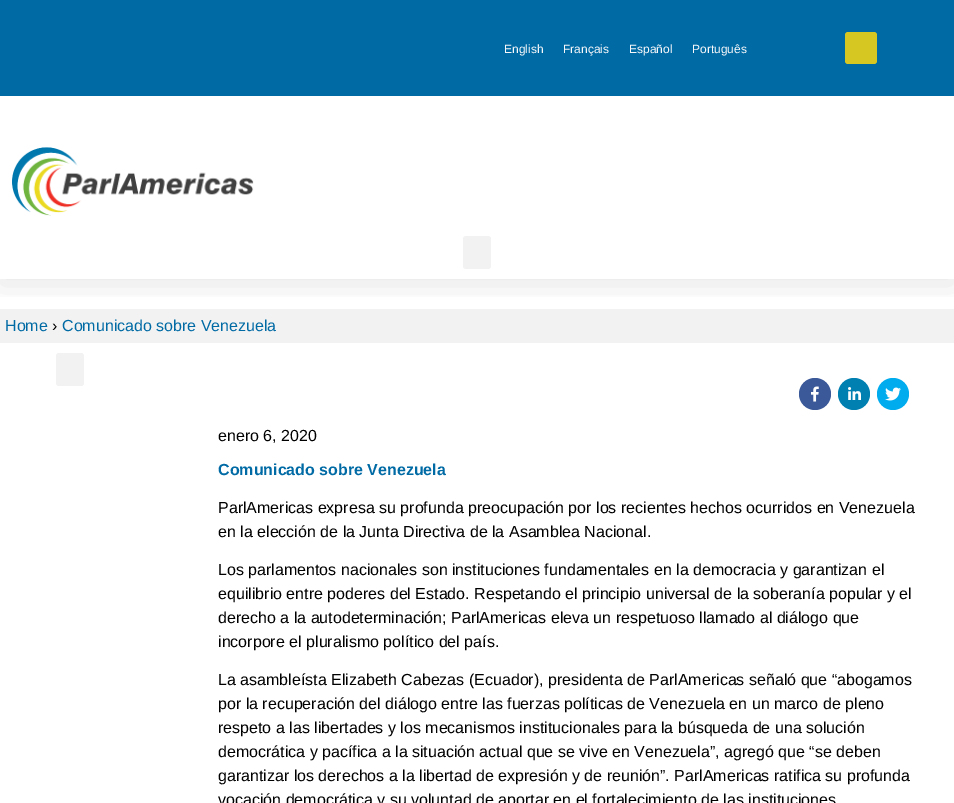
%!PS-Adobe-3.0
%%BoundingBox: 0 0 954 803
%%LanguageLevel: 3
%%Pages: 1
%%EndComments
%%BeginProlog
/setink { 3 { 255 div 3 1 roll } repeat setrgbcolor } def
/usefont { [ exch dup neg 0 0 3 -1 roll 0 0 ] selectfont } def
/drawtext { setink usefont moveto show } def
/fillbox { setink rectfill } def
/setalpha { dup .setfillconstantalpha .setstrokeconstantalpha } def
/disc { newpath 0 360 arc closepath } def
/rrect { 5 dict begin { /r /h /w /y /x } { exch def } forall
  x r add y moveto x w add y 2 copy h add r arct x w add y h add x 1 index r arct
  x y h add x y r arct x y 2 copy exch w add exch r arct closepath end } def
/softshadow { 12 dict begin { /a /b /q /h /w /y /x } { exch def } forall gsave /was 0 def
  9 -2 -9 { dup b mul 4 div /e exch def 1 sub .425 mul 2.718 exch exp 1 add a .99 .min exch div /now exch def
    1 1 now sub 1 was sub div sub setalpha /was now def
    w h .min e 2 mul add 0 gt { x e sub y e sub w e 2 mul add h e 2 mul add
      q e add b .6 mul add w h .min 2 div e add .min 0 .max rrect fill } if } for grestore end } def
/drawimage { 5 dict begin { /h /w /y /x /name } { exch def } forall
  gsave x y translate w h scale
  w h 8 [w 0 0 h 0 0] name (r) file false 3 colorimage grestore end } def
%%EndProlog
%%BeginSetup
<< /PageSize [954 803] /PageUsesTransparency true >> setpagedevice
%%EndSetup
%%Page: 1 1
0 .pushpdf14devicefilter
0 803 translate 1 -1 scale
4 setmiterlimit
0 0 954 803 255 255 255 fillbox
0 309 954 34 242 242 242 fillbox
gsave
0 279 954 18 rectclip
0 0 0 setink
0 5 954 279 0 15 0.1 softshadow
grestore
0 0 954 96 0 106 165 fillbox
(English) 504 53 /LiberationSans-Regular 12 248 248 250 drawtext
(Français) 563 53 /LiberationSans-Regular 12 248 248 250 drawtext
(Español) 629 53 /LiberationSans-Regular 12 248 248 250 drawtext
(Português) 692 53 /LiberationSans-Regular 12 248 248 250 drawtext
214 199 35 setink
845 32 32 32 3 rrect fill
(assets/img1.rgb) 12 147 242 69 drawimage
242 242 242 setink
463 236 28 33 3 rrect fill
(Home) 5 331 /LiberationSans-Regular 16 0 106 165 drawtext
(›) 52 331 /LiberationSans-Regular 16 0 0 0 drawtext
(Comunicado sobre Venezuela) 62 331 /LiberationSans-Regular 16 0 106 165 drawtext
242 242 242 setink
56 353 28 33 3 rrect fill
59 89 152 setink
815 394 16 disc fill
(assets/img2.rgb) 811 386 8 16 drawimage
0 127 177 setink
854 394 16 disc fill
(assets/img3.rgb) 848 387 13 13 drawimage
0 172 237 setink
893 394 16 disc fill
(assets/img4.rgb) 885 387 16 14 drawimage
(enero 6, 2020) 218 441 /LiberationSans-Regular 16 0 0 0 drawtext
(Comunicado sobre Venezuela) 218 475 /LiberationSans-Bold 16 0 106 165 drawtext
(ParlAmericas expresa su profunda preocupación por los recientes hechos ocurridos en Venezuela) 218 513 /LiberationSans-Regular 16 0 0 0 drawtext
(en la elección de la Junta Directiva de la Asamblea Nacional.) 218 537 /LiberationSans-Regular 16 0 0 0 drawtext
(Los parlamentos nacionales son instituciones fundamentales en la democracia y garantizan el) 218 575 /LiberationSans-Regular 16 0 0 0 drawtext
(equilibrio entre poderes del Estado. Respetando el principio universal de la soberanía popular y el) 218 599 /LiberationSans-Regular 16 0 0 0 drawtext
(derecho a la autodeterminación; ParlAmericas eleva un respetuoso llamado al diálogo que) 218 623 /LiberationSans-Regular 16 0 0 0 drawtext
(incorpore el pluralismo político del país.) 218 647 /LiberationSans-Regular 16 0 0 0 drawtext
(La asambleísta Elizabeth Cabezas \(Ecuador\), presidenta de ParlAmericas señaló que “abogamos) 218 685 /LiberationSans-Regular 16 0 0 0 drawtext
(por la recuperación del diálogo entre las fuerzas políticas de Venezuela en un marco de pleno) 218 709 /LiberationSans-Regular 16 0 0 0 drawtext
(respeto a las libertades y los mecanismos institucionales para la búsqueda de una solución) 218 733 /LiberationSans-Regular 16 0 0 0 drawtext
(democrática y pacífica a la situación actual que se vive en Venezuela”, agregó que “se deben) 218 757 /LiberationSans-Regular 16 0 0 0 drawtext
(garantizar los derechos a la libertad de expresión y de reunión”. ParlAmericas ratifica su profunda) 218 781 /LiberationSans-Regular 16 0 0 0 drawtext
(vocación democrática y su voluntad de aportar en el fortalecimiento de las instituciones) 218 805 /LiberationSans-Regular 16 0 0 0 drawtext
.poppdf14devicefilter showpage
%%EOF
